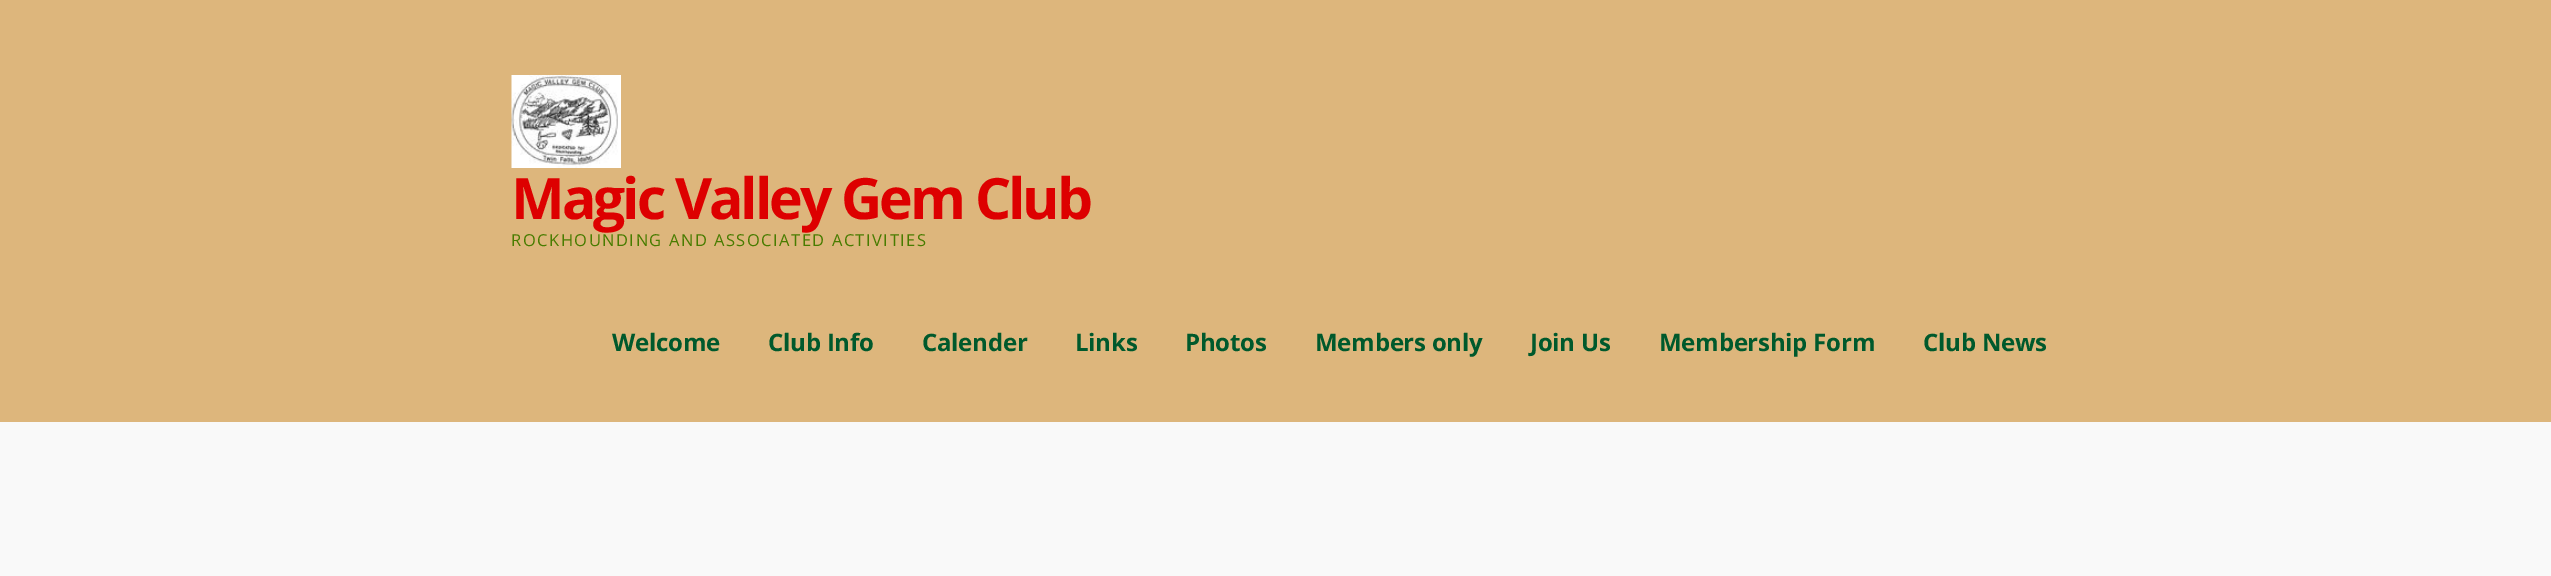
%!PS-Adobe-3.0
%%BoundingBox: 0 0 2551 576
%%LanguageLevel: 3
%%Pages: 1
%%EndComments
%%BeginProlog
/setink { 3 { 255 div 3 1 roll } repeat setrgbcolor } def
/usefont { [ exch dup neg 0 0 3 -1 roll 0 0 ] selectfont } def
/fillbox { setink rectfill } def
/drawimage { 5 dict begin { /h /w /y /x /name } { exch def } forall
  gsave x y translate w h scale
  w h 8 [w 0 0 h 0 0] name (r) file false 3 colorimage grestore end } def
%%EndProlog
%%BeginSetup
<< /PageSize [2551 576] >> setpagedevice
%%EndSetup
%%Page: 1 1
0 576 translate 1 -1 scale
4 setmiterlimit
0 0 2551 576 221 182 124 fillbox
(assets/img1.rgb) 511 75 110 93 drawimage
/OpenSans-Bold 57 usefont
221 0 0 setink
511 219 moveto -3 0 (Magic Valley Gem Club) ashow
/OpenSans-Regular 16.5 usefont
72 124 0 setink
511 246 moveto 1.5 0 (ROCKHOUNDING AND ASSOCIATED ACTIVITIES) ashow
/OpenSans-Bold 24 usefont
0 89 44 setink
612 351 moveto -0.25 0 (Welcome) ashow
768 351 moveto -0.25 0 (Club Info) ashow
922 351 moveto -0.25 0 (Calender) ashow
1075 351 moveto -0.25 0 (Links) ashow
1185 351 moveto -0.25 0 (Photos) ashow
1315 351 moveto -0.25 0 (Members only) ashow
1530 351 moveto -0.25 0 (Join Us) ashow
1659 351 moveto -0.25 0 (Membership Form) ashow
1923 351 moveto -0.25 0 (Club News) ashow
0 422 2551 154 249 249 249 fillbox
showpage
%%EOF
